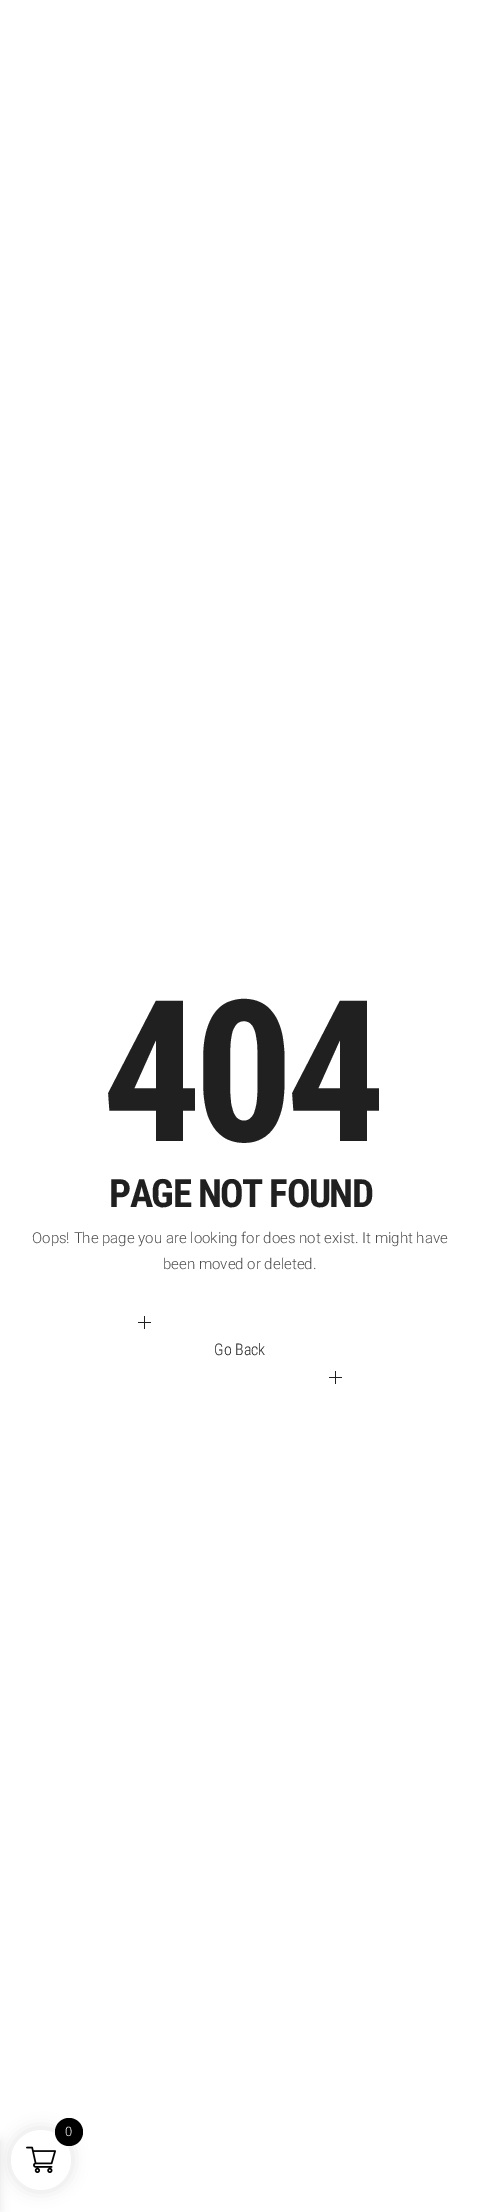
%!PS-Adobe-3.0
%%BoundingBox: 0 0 480 2212
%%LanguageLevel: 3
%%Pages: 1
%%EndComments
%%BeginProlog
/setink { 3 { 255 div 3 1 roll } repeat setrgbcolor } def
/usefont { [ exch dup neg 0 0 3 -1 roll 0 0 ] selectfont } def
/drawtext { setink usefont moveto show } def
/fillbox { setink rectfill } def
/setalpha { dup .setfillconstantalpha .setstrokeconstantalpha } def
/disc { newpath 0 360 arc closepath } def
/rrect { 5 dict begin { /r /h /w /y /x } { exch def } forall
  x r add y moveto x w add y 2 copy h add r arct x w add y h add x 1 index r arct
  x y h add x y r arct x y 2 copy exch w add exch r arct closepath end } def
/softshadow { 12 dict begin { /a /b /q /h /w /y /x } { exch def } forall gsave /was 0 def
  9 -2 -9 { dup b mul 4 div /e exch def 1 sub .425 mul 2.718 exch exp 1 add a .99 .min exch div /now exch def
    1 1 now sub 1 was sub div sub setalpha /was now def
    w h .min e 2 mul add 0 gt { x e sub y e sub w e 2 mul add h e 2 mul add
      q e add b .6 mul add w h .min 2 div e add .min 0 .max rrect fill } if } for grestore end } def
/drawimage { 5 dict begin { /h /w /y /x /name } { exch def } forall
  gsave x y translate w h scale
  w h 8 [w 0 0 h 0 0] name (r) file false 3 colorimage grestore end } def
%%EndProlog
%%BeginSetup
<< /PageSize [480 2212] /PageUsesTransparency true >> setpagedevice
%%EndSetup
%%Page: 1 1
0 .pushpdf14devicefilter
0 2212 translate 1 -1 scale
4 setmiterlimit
0 0 480 2212 255 255 255 fillbox
/RobotoCondensed-Bold 198 usefont
32 32 32 setink
102 1141 moveto -8 0 (404) ashow
/RobotoCondensed-Bold 39 usefont
109 1207 moveto -1.5 0 (PAGE NOT FOUND) ashow
(Oops! The page you are looking for does not exist. It might have) 32 1243 /Roboto-Light 15 76 76 76 drawtext
(been moved or deleted.) 163 1269 /Roboto-Light 15 76 76 76 drawtext
138 1322 13 1 32 32 32 fillbox
144 1316 1 13 32 32 32 fillbox
(Go Back) 214 1355 /RobotoCondensed-Light 16 32 32 32 drawtext
329 1377 13 1 32 32 32 fillbox
335 1371 1 13 32 32 32 fillbox
0 0 0 setink
-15 2141 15 70 0 5 0.1 softshadow
9 2128 64 64 32 7.5 0.1 softshadow
255 255 255 setink
41 2160 30 disc fill
0 0 0 setink
69 2132 14 disc fill
(0) 65 2136 /Roboto-Light 13 255 255 255 drawtext
(assets/img1.rgb) 26 2146 30 27 drawimage
.poppdf14devicefilter showpage
%%EOF
